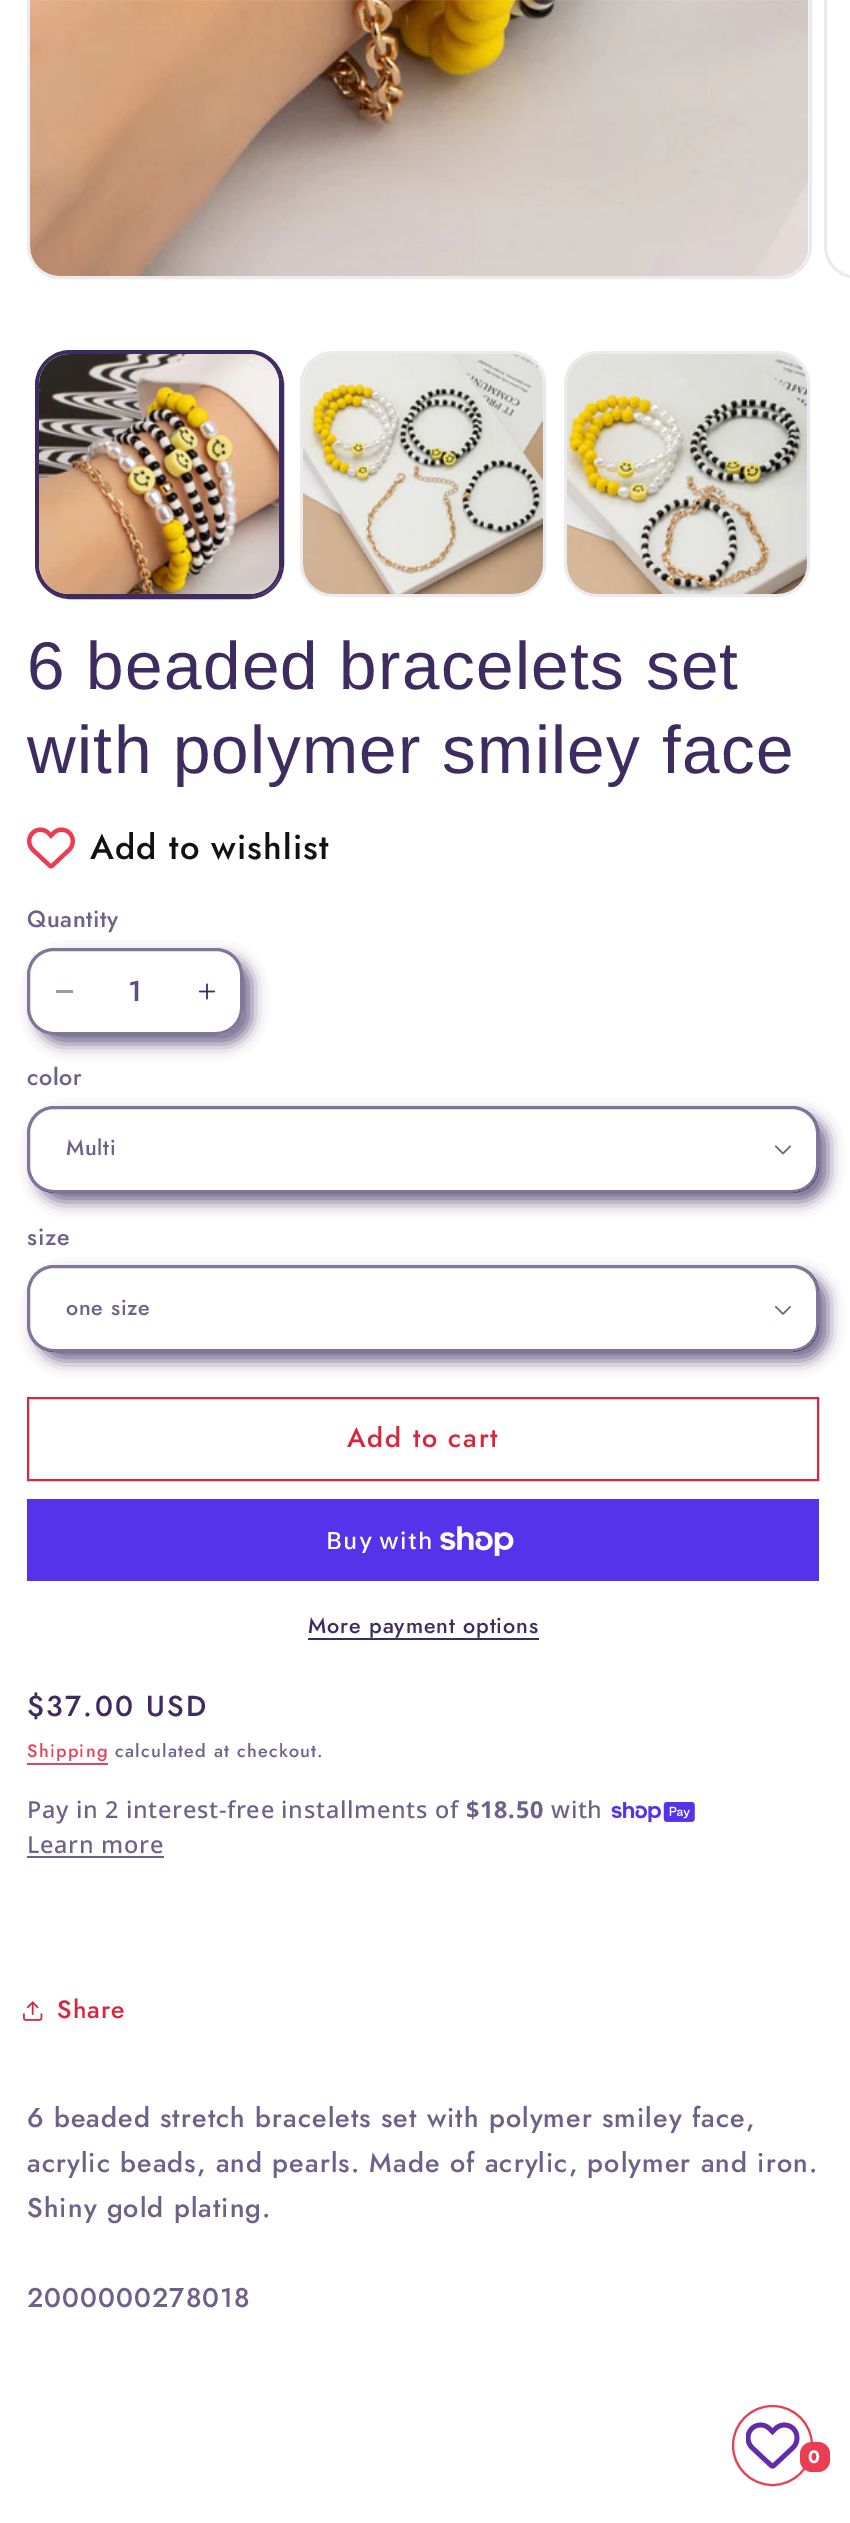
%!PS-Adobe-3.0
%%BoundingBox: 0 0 850 2523
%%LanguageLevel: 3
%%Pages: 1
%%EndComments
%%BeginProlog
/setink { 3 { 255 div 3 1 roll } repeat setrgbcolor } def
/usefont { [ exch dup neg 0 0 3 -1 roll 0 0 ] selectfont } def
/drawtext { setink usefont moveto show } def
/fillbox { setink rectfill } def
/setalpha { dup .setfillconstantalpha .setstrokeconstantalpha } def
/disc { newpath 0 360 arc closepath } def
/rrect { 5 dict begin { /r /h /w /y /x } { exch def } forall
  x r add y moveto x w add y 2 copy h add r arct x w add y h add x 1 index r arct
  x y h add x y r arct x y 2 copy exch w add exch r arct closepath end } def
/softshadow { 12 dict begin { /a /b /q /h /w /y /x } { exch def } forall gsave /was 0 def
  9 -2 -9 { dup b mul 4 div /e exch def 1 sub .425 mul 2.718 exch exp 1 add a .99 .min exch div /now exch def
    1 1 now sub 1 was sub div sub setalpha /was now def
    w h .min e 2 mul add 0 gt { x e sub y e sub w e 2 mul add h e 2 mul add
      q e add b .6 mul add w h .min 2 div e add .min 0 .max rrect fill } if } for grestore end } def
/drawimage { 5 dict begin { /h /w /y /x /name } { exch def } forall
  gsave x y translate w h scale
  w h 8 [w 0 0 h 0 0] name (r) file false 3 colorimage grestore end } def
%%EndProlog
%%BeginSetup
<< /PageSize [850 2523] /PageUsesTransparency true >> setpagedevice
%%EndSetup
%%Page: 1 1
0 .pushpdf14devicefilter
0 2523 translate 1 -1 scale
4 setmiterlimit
0 0 850 2523 255 255 255 fillbox
236 234 239 setink
3 setlinewidth
28.5 -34.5 782 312 31.5 rrect stroke
(assets/img1.rgb) 30 0 779 276 drawimage
0.08 setalpha
30 0 778 1 255 255 255 fillbox
1 setalpha
236 234 239 setink
825.5 -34.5 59 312 31.5 rrect stroke
62 44 97 setink
2 setlinewidth
36 351 247 247 34 rrect stroke
3 setlinewidth
37.5 352.5 243 243 31.5 rrect stroke
(assets/img2.rgb) 39 354 240 240 drawimage
236 234 239 setink
301.5 352.5 243 243 31.5 rrect stroke
(assets/img3.rgb) 303 354 240 240 drawimage
565.5 352.5 243 243 31.5 rrect stroke
(assets/img4.rgb) 567 354 240 240 drawimage
/LiberationSans-Regular 67.5 usefont
62 44 97 setink
27 689 moveto 1.35 0 (6 beaded bracelets set) ashow
27 773 moveto 1.35 0 (with polymer smiley face) ashow
(assets/img5.rgb) 27 827 48 42 drawimage
/Jost-Medium 34.5 usefont
18 18 18 setink
90 859 moveto 1.08 0 (Add to wishlist) ashow
/Jost-Medium 23.4 usefont
110 97 137 setink
27 927 moveto 0.7 0 (Quantity) ashow
62 44 97 setink
36 957 216 87 27 7.5 0.7 softshadow
255 255 255 setink
27 948 216 87 27 rrect fill
56 990 17 3 159 150 176 fillbox
(assets/img6.rgb) 198 983 18 17 drawimage
0.65 setalpha
62 44 97 setink
28.5 949.5 213 84 25.5 rrect stroke
1 setalpha
(1) 128 1001 /Jost-Medium 28.75 91 76 121 drawtext
/Jost-Medium 23.4 usefont
110 97 137 setink
27 1085 moveto 0.7 0 (color) ashow
gsave
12 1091 moveto 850 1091 lineto 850 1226 lineto 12 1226 lineto closepath 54 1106 moveto 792 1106 lineto 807 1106 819 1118 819 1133 curveto 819 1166 lineto 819 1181 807 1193 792 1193 curveto 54 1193 lineto 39 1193 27 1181 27 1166 curveto 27 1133 lineto 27 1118 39 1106 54 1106 curveto closepath eoclip newpath
62 44 97 setink
36 1115 792 87 27 7.5 0.7 softshadow
grestore
(assets/img7.rgb) 775 1145 16 10 drawimage
0.65 setalpha
62 44 97 setink
28.5 1107.5 789 84 25.5 rrect stroke
/Jost-Medium 21.6 usefont
1 setalpha
110 97 137 setink
66 1155 moveto 0.7 0 (Multi) ashow
/Jost-Medium 23.4 usefont
27 1245 moveto 0.7 0 (size) ashow
gsave
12 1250 moveto 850 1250 lineto 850 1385 lineto 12 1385 lineto closepath 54 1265 moveto 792 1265 lineto 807 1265 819 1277 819 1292 curveto 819 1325 lineto 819 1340 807 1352 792 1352 curveto 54 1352 lineto 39 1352 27 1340 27 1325 curveto 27 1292 lineto 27 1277 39 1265 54 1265 curveto closepath eoclip newpath
62 44 97 setink
36 1274 792 87 27 7.5 0.7 softshadow
grestore
(assets/img8.rgb) 775 1306 16 9 drawimage
0.65 setalpha
62 44 97 setink
28.5 1266.5 789 84 25.5 rrect stroke
/Jost-Medium 21.6 usefont
1 setalpha
110 97 137 setink
66 1315 moveto 0.7 0 (one size) ashow
217 38 63 setink
2 setlinewidth
28 1398 790 82 rectstroke
/Jost-Medium 27 usefont
347 1447 moveto 1.75 0 (Add to cart) ashow
27 1499 792 82 84 51 235 fillbox
/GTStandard-Medium 24 usefont
255 255 255 setink
326 1549 moveto 1.08 0 (Buy with) ashow
(assets/img9.rgb) 440 1526 74 30 drawimage
/Jost-Medium 21.6 usefont
62 44 97 setink
308 1633 moveto 0.9 0 (More payment options) ashow
308 1638 231 2 62 44 97 fillbox
/Jost-Medium 28.75 usefont
27 1716 moveto 2.25 0 ($37.00 USD) ashow
/Jost-Medium 18 usefont
223 71 92 setink
27 1757 moveto 1.25 0 (Shipping) ashow
27 1763 81 2 223 71 92 fillbox
110 97 137 setink
115 1757 moveto 1.25 0 (calculated at checkout.) ashow
/NotoSans-Medium 23.4 usefont
27 1818 moveto 0.7 0 (Pay in 2 interest-free installments of) ashow
/NotoSans-Bold 23.4 usefont
466 1818 moveto 0.7 0 ($18.50) ashow
/NotoSans-Medium 23.4 usefont
551 1818 moveto 0.7 0 (with) ashow
(assets/img10.rgb) 611 1802 84 21 drawimage
27 1853 moveto 0.7 0 (Learn more) ashow
27 1856 137 2 110 97 137 fillbox
(assets/img11.rgb) 23 2001 20 20 drawimage
/Jost-Medium 25 usefont
217 38 63 setink
57 2018 moveto 1.08 0 (Share) ashow
/Jost-Medium 27 usefont
110 97 137 setink
27 2127 moveto 1.08 0 (6 beaded stretch bracelets set with polymer smiley face,) ashow
27 2172 moveto 1.08 0 (acrylic beads, and pearls. Made of acrylic, polymer and iron.) ashow
27 2217 moveto 1.08 0 (Shiny gold plating.) ashow
27 2307 moveto 1.08 0 (2000000278018) ashow
234 60 83 setink
772.5 2445.5 39.5 disc stroke
(assets/img12.rgb) 746 2422 54 47 drawimage
800 2442 30 30 12 rrect fill
/Jost-Bold 18 usefont
255 255 255 setink
808 2463 moveto 1.08 0 (0) ashow
.poppdf14devicefilter showpage
%%EOF
